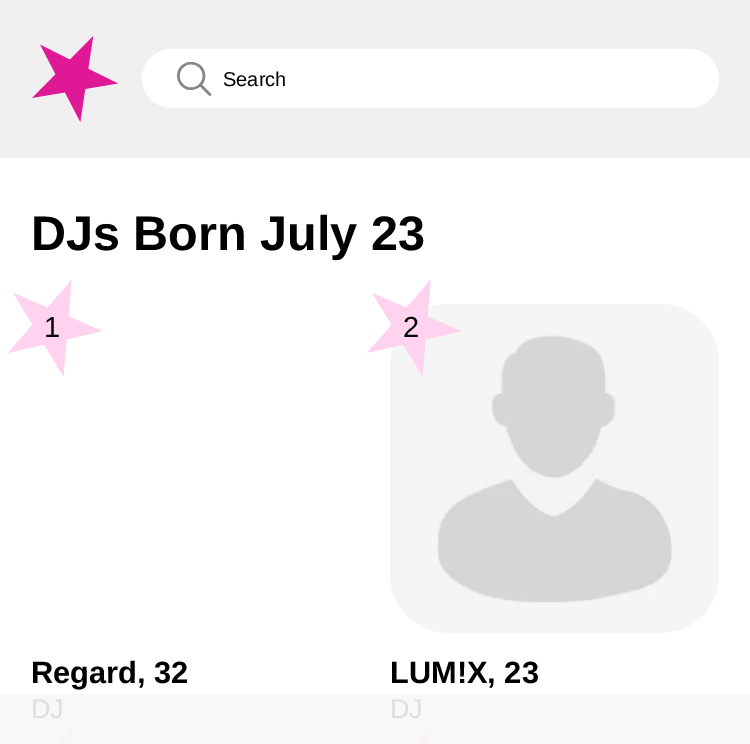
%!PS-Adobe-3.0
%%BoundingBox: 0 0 750 744
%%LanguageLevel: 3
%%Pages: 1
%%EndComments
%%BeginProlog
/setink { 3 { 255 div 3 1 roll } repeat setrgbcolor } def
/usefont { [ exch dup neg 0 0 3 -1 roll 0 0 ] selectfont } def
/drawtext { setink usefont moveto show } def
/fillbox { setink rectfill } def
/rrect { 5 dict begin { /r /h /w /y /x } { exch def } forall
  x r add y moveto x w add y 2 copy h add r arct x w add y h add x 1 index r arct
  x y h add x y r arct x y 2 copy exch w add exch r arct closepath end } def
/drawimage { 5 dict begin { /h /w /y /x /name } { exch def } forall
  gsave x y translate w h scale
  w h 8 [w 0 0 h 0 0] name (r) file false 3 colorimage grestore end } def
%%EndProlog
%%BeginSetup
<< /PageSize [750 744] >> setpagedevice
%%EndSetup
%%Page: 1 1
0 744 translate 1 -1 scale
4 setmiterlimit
0 0 750 744 255 255 255 fillbox
0 694 750 50 248 248 248 fillbox
0 0 750 158 241 239 239 fillbox
(assets/img1.rgb) 32 36 86 86 drawimage
255 255 255 setink
143.5 50.5 574 56 28 rrect gsave fill grestore
3 setlinewidth
stroke
(assets/img2.rgb) 177 62 35 34 drawimage
(Search) 223 86 /LiberationSans-Regular 20 0 0 0 drawtext
(DJs Born July 23) 31 250 /LiberationSans-Bold 48.5 0 0 0 drawtext
(assets/img3.rgb) 8 279 95 98 drawimage
(1) 44 337 /LiberationSans-Regular 29 0 0 0 drawtext
(Regard, 32) 31 683 /LiberationSans-Bold 30.75 0 0 0 drawtext
(DJ) 31 718 /LiberationSans-Regular 27 222 222 222 drawtext
(assets/img4.rgb) 390 304 329 329 drawimage
(assets/img5.rgb) 367 279 95 98 drawimage
(2) 403 337 /LiberationSans-Regular 29 0 0 0 drawtext
(LUM!X, 23) 390 683 /LiberationSans-Bold 30.75 0 0 0 drawtext
(DJ) 390 718 /LiberationSans-Regular 27 222 222 222 drawtext
(assets/img6.rgb) 13 727 59 17 drawimage
(assets/img6.rgb) 372 727 59 17 drawimage
showpage
%%EOF
